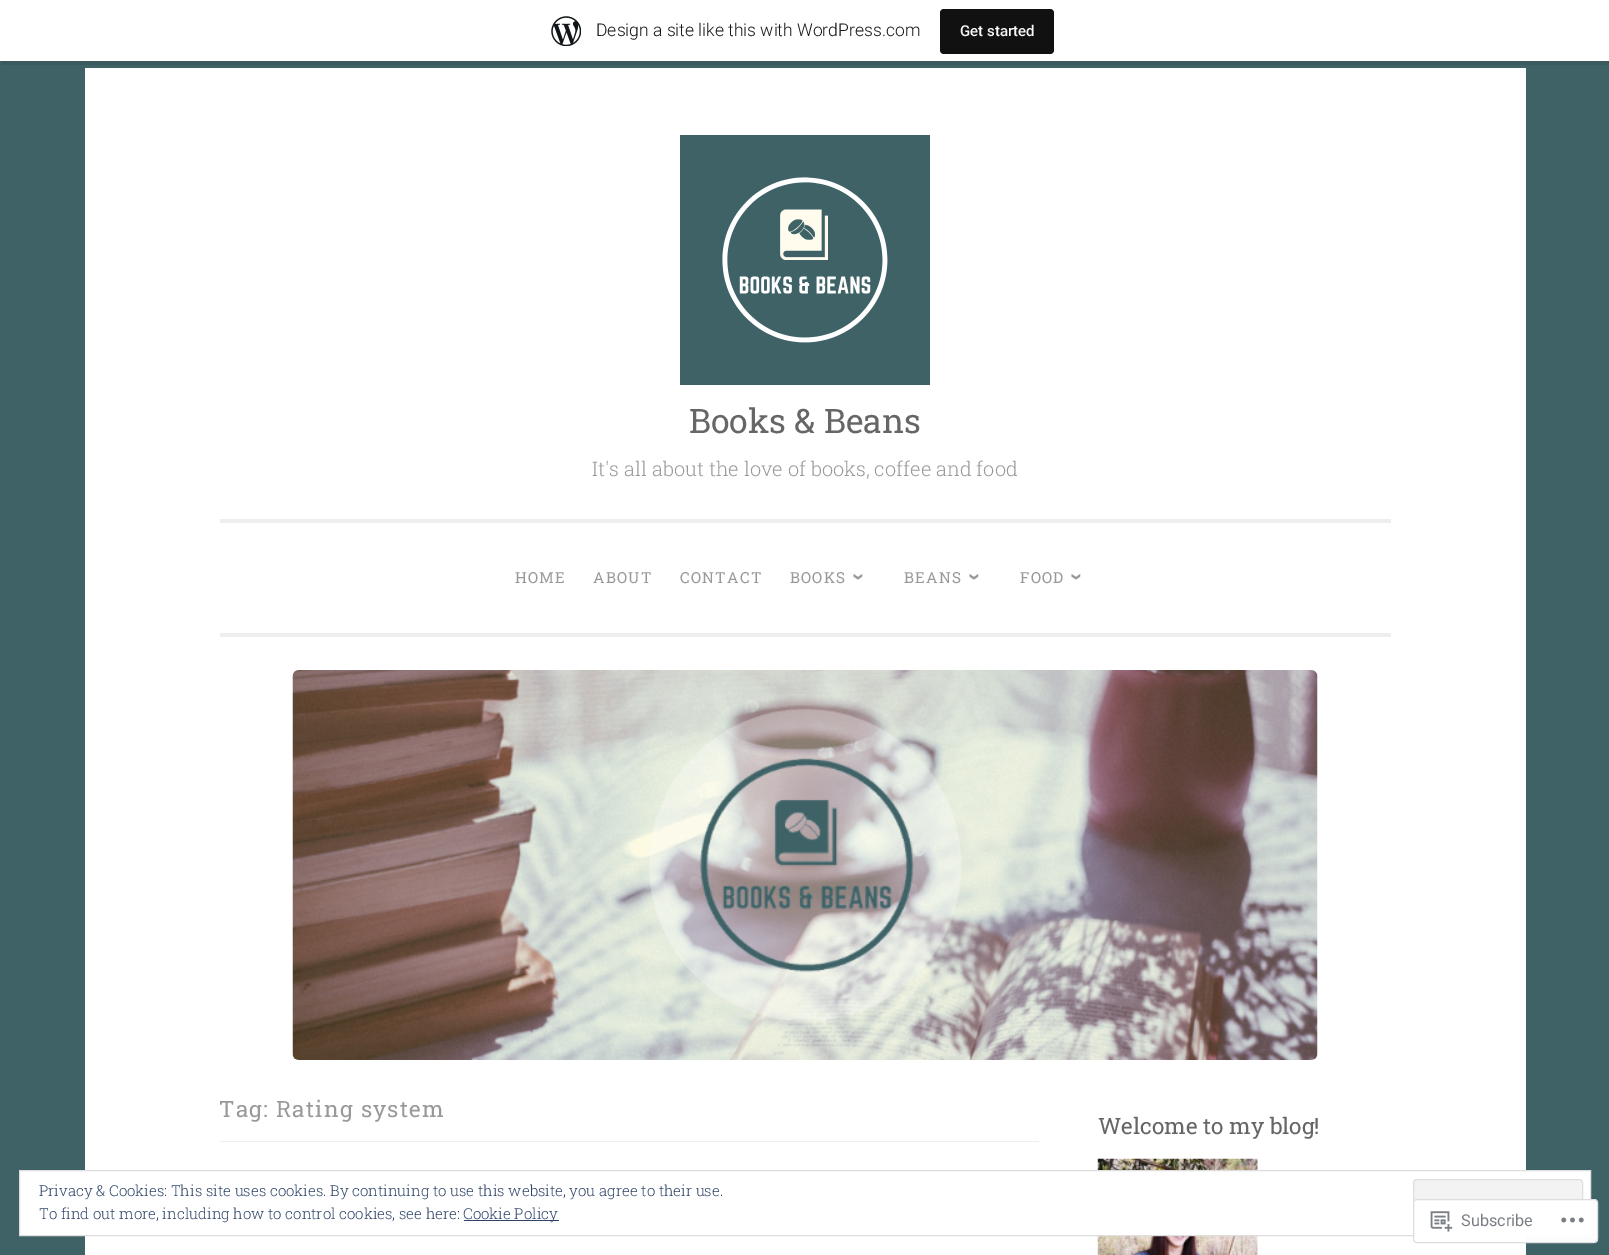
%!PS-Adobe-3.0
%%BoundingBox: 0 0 1609 1255
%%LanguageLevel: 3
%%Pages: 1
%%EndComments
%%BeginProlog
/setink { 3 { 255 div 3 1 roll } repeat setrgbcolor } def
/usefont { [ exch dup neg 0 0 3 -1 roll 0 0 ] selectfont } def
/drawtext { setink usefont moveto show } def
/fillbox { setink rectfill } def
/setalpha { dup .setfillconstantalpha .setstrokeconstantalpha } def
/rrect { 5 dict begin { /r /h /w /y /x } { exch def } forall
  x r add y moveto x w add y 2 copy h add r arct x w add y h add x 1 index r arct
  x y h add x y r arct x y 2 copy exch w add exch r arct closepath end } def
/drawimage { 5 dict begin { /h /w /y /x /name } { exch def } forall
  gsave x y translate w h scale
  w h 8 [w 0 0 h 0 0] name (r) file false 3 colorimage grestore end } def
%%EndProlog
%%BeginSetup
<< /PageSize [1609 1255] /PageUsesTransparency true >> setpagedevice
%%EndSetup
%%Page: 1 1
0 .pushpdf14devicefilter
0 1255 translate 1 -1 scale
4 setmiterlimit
0 0 1609 1255 63 98 102 fillbox
0.08 setalpha
0 0 0 setink
1 61 moveto 1 65 lineto 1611 65 lineto 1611 4 lineto 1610 4 lineto 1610 61 lineto closepath fill
1 setalpha
0 0 1609 61 255 255 255 fillbox
(assets/img1.rgb) 551 16 30 30 drawimage
(Design a site like this with WordPress.com) 596 36 /Roboto-Light 17.5 23 23 23 drawtext
17 17 17 setink
940 9 114 45 4 rrect fill
(Get started) 960 36 /Roboto-Medium 15 246 247 247 drawtext
85 68 1441 1187 255 255 255 fillbox
220 633 1171 4 238 238 238 fillbox
(assets/img2.rgb) 680 135 250 250 drawimage
(Books & Beans) 689 433 /RobotoSlab-Regular 33.75 102 102 102 drawtext
(It's all about the love of books, coffee and food) 592 476 /RobotoSlab-Light 20 153 153 153 drawtext
220 519 1171 4 238 238 238 fillbox
/RobotoSlab-Regular 15.25 usefont
153 153 153 setink
515 583 moveto 1.25 0 (HOME) ashow
593 583 moveto 1.25 0 (ABOUT) ashow
680 583 moveto 1.25 0 (CONTACT) ashow
790 583 moveto 1.25 0 (BOOKS) ashow
/LiberationSans-Bold 22.5 usefont
gsave 852 573 translate 90 rotate 0 0 moveto 1.25 0 (›) ashow grestore
/RobotoSlab-Regular 15.25 usefont
904 583 moveto 1.25 0 (BEANS) ashow
/LiberationSans-Bold 22.5 usefont
gsave 968 573 translate 90 rotate 0 0 moveto 1.25 0 (›) ashow grestore
/RobotoSlab-Regular 15.25 usefont
1020 583 moveto 1.25 0 (FOOD) ashow
/LiberationSans-Bold 22.5 usefont
gsave 1070 573 translate 90 rotate 0 0 moveto 1.25 0 (›) ashow grestore
(assets/img3.rgb) 292 670 1026 390 drawimage
220 1141 819 1 238 238 238 fillbox
/RobotoSlab-Regular 22.5 usefont
153 153 153 setink
219 1117 moveto 1.25 0 (Tag: Rating system) ashow
(Welcome to my blog!) 1098 1134 /RobotoSlab-Regular 22.5 102 102 102 drawtext
(assets/img4.rgb) 1097 1158 161 97 drawimage
255 255 255 setink
19.5 1170.5 moveto 1590.5 1170.5 lineto 1590.5 1235.5 lineto 19.5 1235.5 lineto closepath gsave fill grestore
222 222 222 setink
stroke
(Privacy & Cookies: This site uses cookies. By continuing to use this website, you agree to their use.) 39 1196 /RobotoSlab-Light 15 46 68 103 drawtext
243 243 243 setink
1413.5 1179.5 169 48 3.5 rrect gsave fill grestore
222 222 222 setink
stroke
(To find out more, including how to control cookies, see here:) 39 1219 /RobotoSlab-Light 15 46 68 103 drawtext
464 1220 95 1 46 68 103 fillbox
(Cookie Policy) 463 1219 /RobotoSlab-Light 15 46 68 103 drawtext
0.98 setalpha
255 255 255 setink
1413 1199 185 44 4 rrect fill
220 220 222 setink
1413.5 1199.5 184 43 3.5 rrect stroke
1 setalpha
(assets/img5.rgb) 1430 1211 23 21 drawimage
(Subscribe) 1461 1226 /Roboto-Regular 16.25 122 126 132 drawtext
(assets/img6.rgb) 1561 1217 23 6 drawimage
.poppdf14devicefilter showpage
%%EOF
